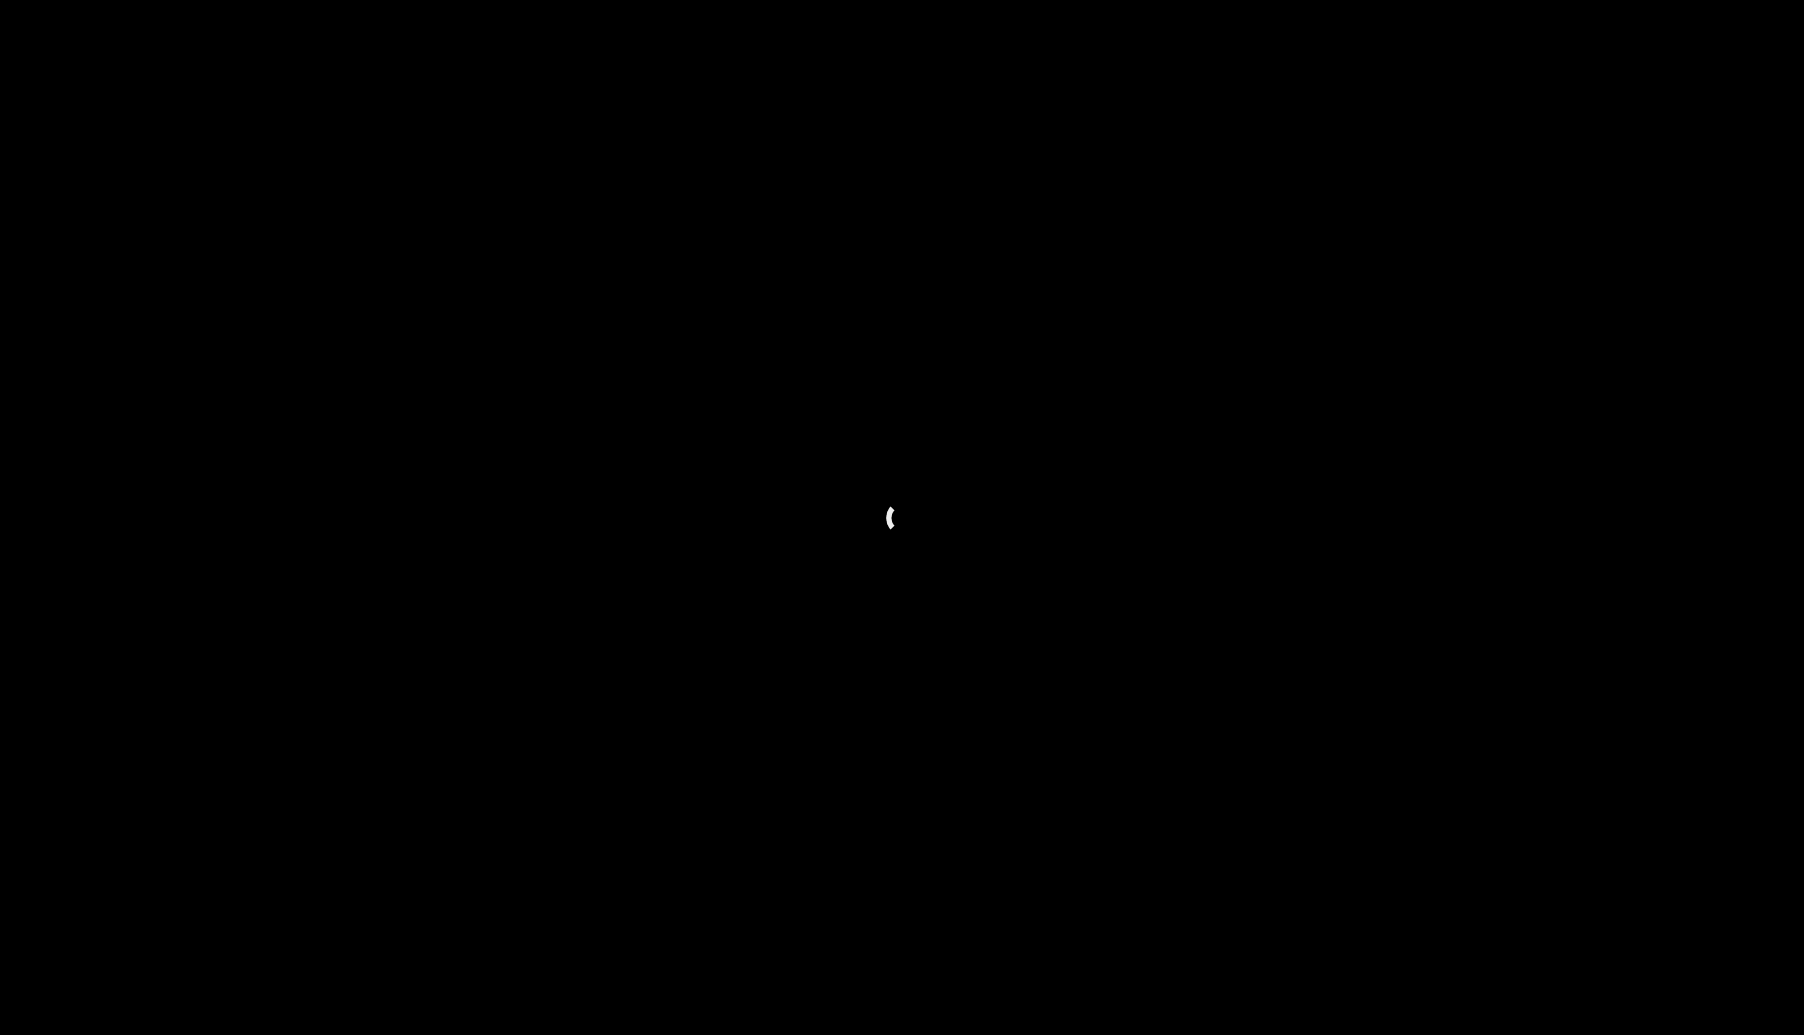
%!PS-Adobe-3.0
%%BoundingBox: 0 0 1804 1035
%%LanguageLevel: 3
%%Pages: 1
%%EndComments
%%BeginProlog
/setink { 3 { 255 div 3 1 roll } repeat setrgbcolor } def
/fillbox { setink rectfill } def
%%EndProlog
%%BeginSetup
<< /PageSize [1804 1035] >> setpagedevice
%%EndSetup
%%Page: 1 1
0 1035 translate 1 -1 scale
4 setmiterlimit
0 0 1804 1035 0 0 0 fillbox
238 238 238 setink
5 setlinewidth
892.5 527.5 moveto 887.5 522.5 887.5 513.5 892.5 508.5 curveto stroke
showpage
%%EOF
